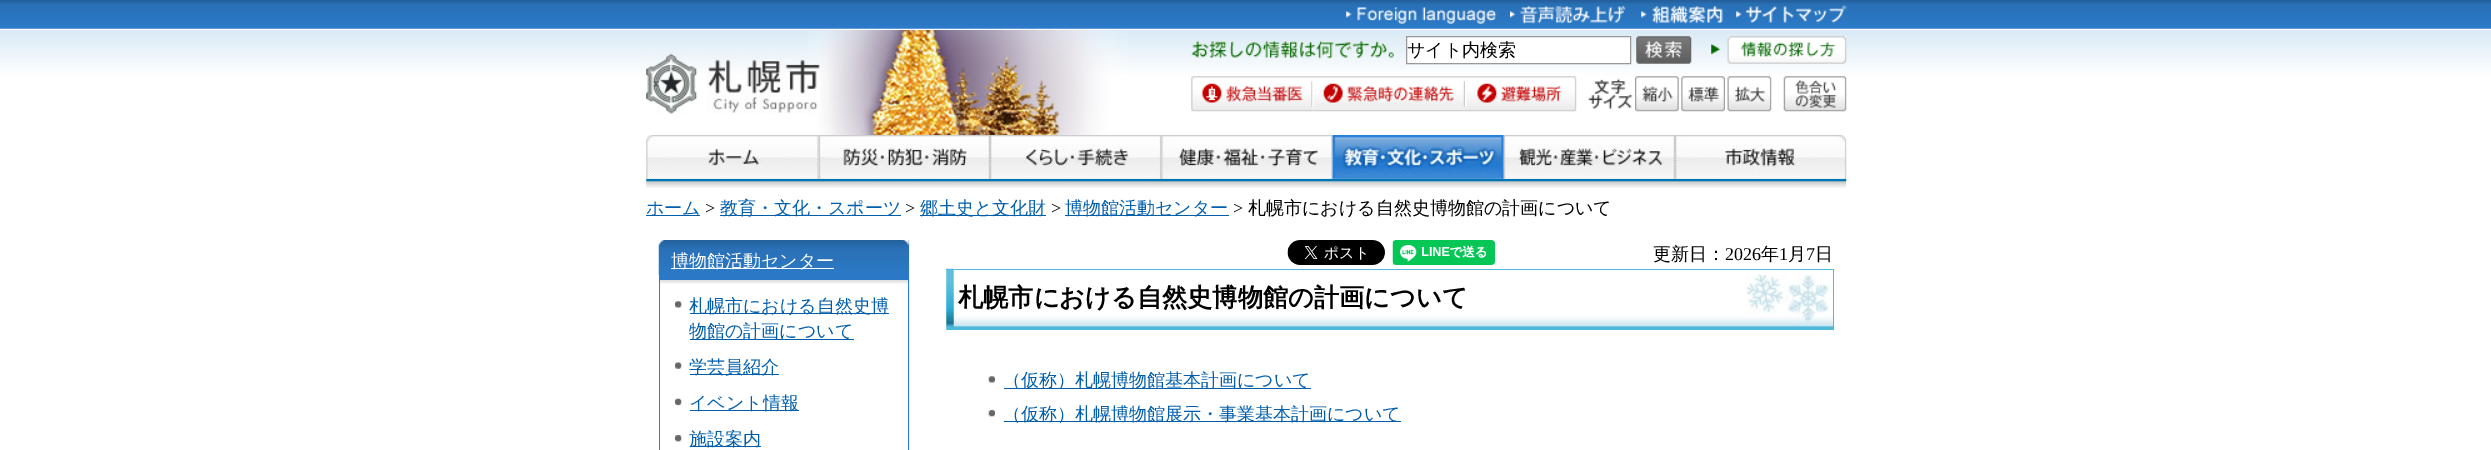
%!PS-Adobe-3.0
%%BoundingBox: 0 0 2491 450
%%LanguageLevel: 3
%%Pages: 1
%%EndComments
%%BeginProlog
/setink { 3 { 255 div 3 1 roll } repeat setrgbcolor } def
/usefont { [ exch dup neg 0 0 3 -1 roll 0 0 ] selectfont } def
/drawtext { setink usefont moveto show } def
/fillbox { setink rectfill } def
/drawimage { 5 dict begin { /h /w /y /x /name } { exch def } forall
  gsave x y translate w h scale
  w h 8 [w 0 0 h 0 0] name (r) file false 3 colorimage grestore end } def
%%EndProlog
%%BeginSetup
<< /PageSize [2491 450] >> setpagedevice
%%EndSetup
%%Page: 1 1
0 450 translate 1 -1 scale
4 setmiterlimit
0 0 2491 450 255 255 255 fillbox
(assets/img1.rgb) 0 0 2491 99 drawimage
(assets/img2.rgb) 808 30 320 105 drawimage
(assets/img3.rgb) 1346 7 151 17 drawimage
(assets/img4.rgb) 1510 6 116 18 drawimage
(assets/img5.rgb) 1641 6 82 18 drawimage
(assets/img6.rgb) 1736 5 111 18 drawimage
(assets/img7.rgb) 1191 41 203 18 drawimage
1406.5 36.5 moveto 1630.5 36.5 lineto 1630.5 63.5 lineto 1406.5 63.5 lineto closepath gsave fill grestore
153 153 153 setink
stroke
(サイト内検索) 1407 56 /WenQuanYiZenHei-Medium 18 0 0 0 drawtext
(assets/img8.rgb) 1636 36 56 28 drawimage
(assets/img9.rgb) 1711 36 136 28 drawimage
(assets/img10.rgb) 1191 76 122 36 drawimage
(assets/img11.rgb) 1312 76 153 36 drawimage
(assets/img12.rgb) 1465 76 112 36 drawimage
(assets/img13.rgb) 1588 78 45 31 drawimage
(assets/img14.rgb) 1635 76 44 36 drawimage
(assets/img15.rgb) 1681 76 44 36 drawimage
(assets/img16.rgb) 1727 76 45 36 drawimage
(assets/img17.rgb) 1783 76 64 36 drawimage
(assets/img18.rgb) 646 53 174 61 drawimage
(assets/img19.rgb) 646 178 1201 10 drawimage
(assets/img20.rgb) 646 135 173 44 drawimage
(assets/img21.rgb) 819 135 171 44 drawimage
(assets/img22.rgb) 990 135 172 44 drawimage
(assets/img23.rgb) 1161 135 172 44 drawimage
(assets/img24.rgb) 1332 135 172 44 drawimage
(assets/img25.rgb) 1503 135 172 44 drawimage
(assets/img26.rgb) 1675 135 172 44 drawimage
646 215 54 1 0 94 170 fillbox
(ホーム) 646 214 /WenQuanYiZenHei-Medium 18 0 94 170 drawtext
(>) 705 214 /LiberationSerif-Regular 18 0 0 0 drawtext
720 215 181 1 0 94 170 fillbox
(教育・文化・スポーツ) 720 214 /WenQuanYiZenHei-Medium 18 0 94 170 drawtext
(>) 905 214 /LiberationSerif-Regular 18 0 0 0 drawtext
920 215 126 1 0 94 170 fillbox
(郷土史と文化財) 920 214 /WenQuanYiZenHei-Medium 18 0 94 170 drawtext
(>) 1051 214 /LiberationSerif-Regular 18 0 0 0 drawtext
1065 215 164 1 0 94 170 fillbox
(博物館活動センター) 1065 214 /WenQuanYiZenHei-Medium 18 0 94 170 drawtext
(>) 1233 214 /LiberationSerif-Regular 18 0 0 0 drawtext
(札幌市における自然史博物館の計画について) 1248 214 /WenQuanYiZenHei-Medium 18 0 0 0 drawtext
659 240 250 40 43 121 198 fillbox
(assets/img27.rgb) 658 240 251 35 drawimage
671 268 163 1 255 255 255 fillbox
(博物館活動センター) 671 267 /WenQuanYiZenHei-Medium 18 255 255 255 drawtext
(assets/img28.rgb) 658 280 250 4 drawimage
908 280 1 170 38 128 218 fillbox
659 280 1 170 38 128 218 fillbox
(assets/img29.rgb) 675 301 7 7 drawimage
690 313 199 1 0 94 170 fillbox
(札幌市における自然史博) 689 312 /WenQuanYiZenHei-Medium 18 0 94 170 drawtext
690 339 164 1 0 94 170 fillbox
(物館の計画について) 689 337 /WenQuanYiZenHei-Medium 18 0 94 170 drawtext
(assets/img30.rgb) 675 362 7 7 drawimage
690 374 89 1 0 94 170 fillbox
(学芸員紹介) 689 373 /WenQuanYiZenHei-Medium 18 0 94 170 drawtext
(assets/img31.rgb) 675 398 7 8 drawimage
690 410 109 1 0 94 170 fillbox
(イベント情報) 689 409 /WenQuanYiZenHei-Medium 18 0 94 170 drawtext
(assets/img32.rgb) 675 434 7 8 drawimage
690 446 71 1 0 94 170 fillbox
(施設案内) 689 445 /WenQuanYiZenHei-Medium 18 0 94 170 drawtext
909 240 1 210 242 242 242 fillbox
(assets/img33.rgb) 1287 240 98 25 drawimage
(assets/img34.rgb) 1392 240 103 25 drawimage
(更新日：) 1653 260 /WenQuanYiZenHei-Medium 18 0 0 0 drawtext
(2026) 1725 260 /LiberationSerif-Regular 18 0 0 0 drawtext
(年) 1761 260 /WenQuanYiZenHei-Medium 18 0 0 0 drawtext
(1) 1779 260 /LiberationSerif-Regular 18 0 0 0 drawtext
(月) 1788 260 /WenQuanYiZenHei-Medium 18 0 0 0 drawtext
(7) 1806 260 /LiberationSerif-Regular 18 0 0 0 drawtext
(日) 1815 260 /WenQuanYiZenHei-Medium 18 0 0 0 drawtext
(assets/img35.rgb) 946 268 888 62 drawimage
946 269 888 1 79 185 220 fillbox
1833 269 1 61 79 185 220 fillbox
(札幌市における自然史博物館の計画について) 958 306 /WenQuanYiZenHei-Bold 25.2 0 0 0 drawtext
(assets/img36.rgb) 988 376 7 7 drawimage
1004 388 307 1 0 94 170 fillbox
(（仮称）札幌博物館基本計画について) 1003 386 /WenQuanYiZenHei-Medium 18 0 94 170 drawtext
(assets/img37.rgb) 988 409 7 8 drawimage
1004 421 397 1 0 94 170 fillbox
(（仮称）札幌博物館展示・事業基本計画について) 1003 420 /WenQuanYiZenHei-Medium 18 0 94 170 drawtext
showpage
%%EOF
